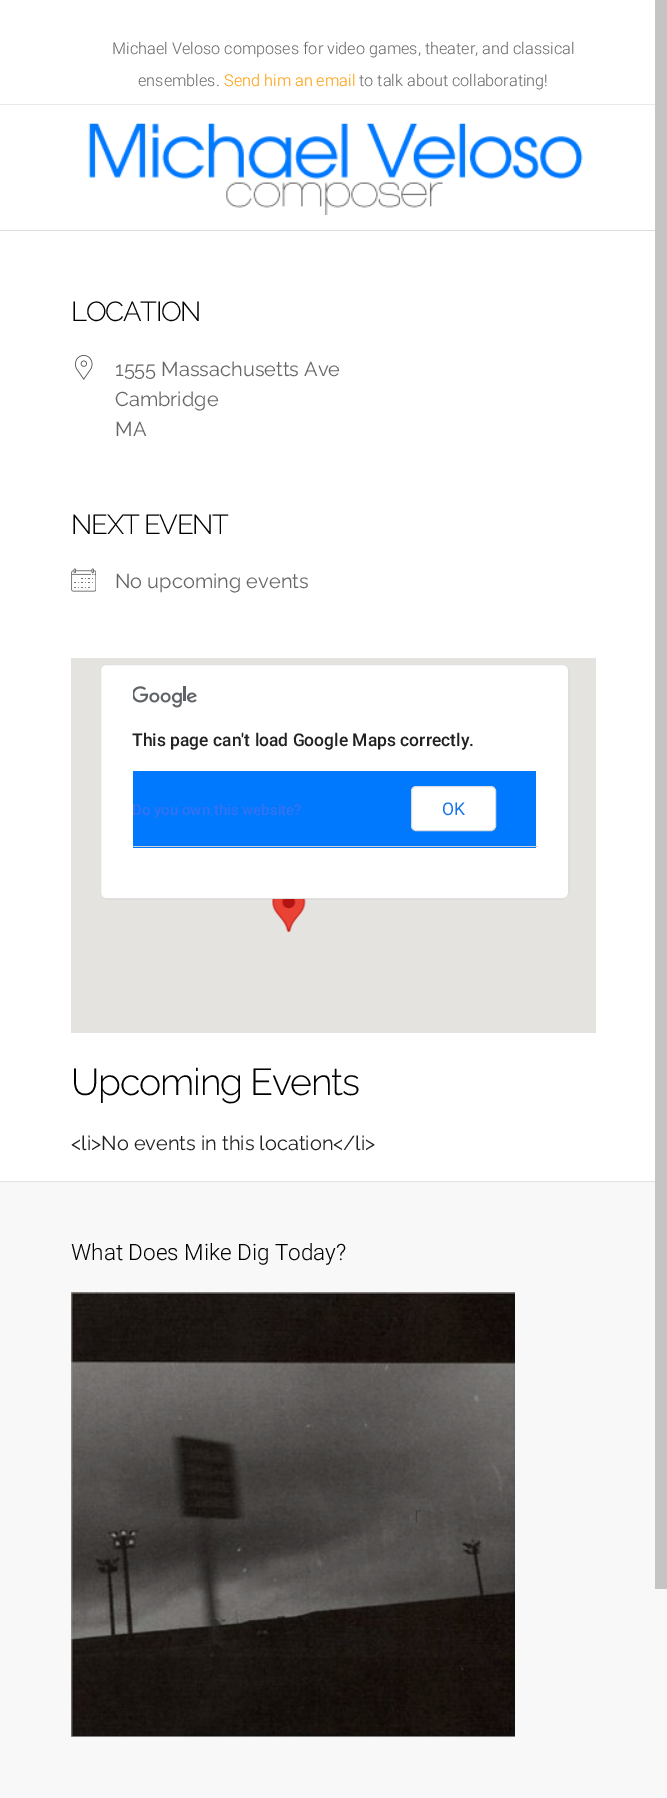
%!PS-Adobe-3.0
%%BoundingBox: 0 0 667 1798
%%LanguageLevel: 3
%%Pages: 1
%%EndComments
%%BeginProlog
/setink { 3 { 255 div 3 1 roll } repeat setrgbcolor } def
/usefont { [ exch dup neg 0 0 3 -1 roll 0 0 ] selectfont } def
/drawtext { setink usefont moveto show } def
/fillbox { setink rectfill } def
/setalpha { dup .setfillconstantalpha .setstrokeconstantalpha } def
/rrect { 5 dict begin { /r /h /w /y /x } { exch def } forall
  x r add y moveto x w add y 2 copy h add r arct x w add y h add x 1 index r arct
  x y h add x y r arct x y 2 copy exch w add exch r arct closepath end } def
/drawimage { 5 dict begin { /h /w /y /x /name } { exch def } forall
  gsave x y translate w h scale
  w h 8 [w 0 0 h 0 0] name (r) file false 3 colorimage grestore end } def
%%EndProlog
%%BeginSetup
<< /PageSize [667 1798] /PageUsesTransparency true >> setpagedevice
%%EndSetup
%%Page: 1 1
0 .pushpdf14devicefilter
0 1798 translate 1 -1 scale
4 setmiterlimit
0 0 667 1798 255 255 255 fillbox
0 230 655 1 221 221 221 fillbox
0 104 655 1 231 233 235 fillbox
(Michael Veloso composes for video games, theater, and classical) 112 54 /Roboto-Light 16.25 102 102 102 drawtext
(ensembles.) 138 86 /Roboto-Light 16.25 102 102 102 drawtext
(Send him an email) 224 86 /Roboto-Light 16.25 255 153 0 drawtext
(to talk about collaborating!) 359 86 /Roboto-Light 16.25 102 102 102 drawtext
(assets/img1.rgb) 88 123 495 92 drawimage
/Raleway-Light 27.5 usefont
0 0 0 setink
71 321 moveto -1.25 0 (LOCATION) ashow
(assets/img2.rgb) 75 355 18 25 drawimage
(1555 Massachusetts Ave) 115 376 /Raleway-Regular 20 102 102 102 drawtext
(Cambridge) 115 406 /Raleway-Regular 20 102 102 102 drawtext
(MA) 115 436 /Raleway-Regular 20 102 102 102 drawtext
/Raleway-Light 27.5 usefont
0 0 0 setink
71 534 moveto -1.25 0 (NEXT EVENT) ashow
(assets/img3.rgb) 71 568 25 24 drawimage
(No upcoming events) 115 588 /Raleway-Regular 20 102 102 102 drawtext
71 658 525 375 229 227 223 fillbox
(assets/img4.rgb) 272 899 34 33 drawimage
255 255 255 setink
100 664 469 235 6 rrect fill
0.12 setalpha
0 0 0 setink
100.5 664.5 468 234 5.5 rrect stroke
1 setalpha
(assets/img5.rgb) 133 686 64 22 drawimage
(This page can't load Google Maps correctly.) 132 746 /Roboto-Medium 17.5 33 33 33 drawtext
133 771 403 77 0 121 255 fillbox
(Do you own this website?) 132 815 /Roboto-Medium 15 51 114 240 drawtext
133 846 405 1 209 209 209 fillbox
255 255 255 setink
411.5 786.5 84 44 4.5 rrect gsave fill grestore
218 220 224 setink
stroke
(OK) 442 815 /Roboto-Regular 17.5 26 115 232 drawtext
/Raleway-Light 37.5 usefont
0 0 0 setink
71 1095 moveto -1.25 0 (Upcoming Events) ashow
(<li>No events in this location</li>) 71 1150 /Raleway-Regular 20 33 33 33 drawtext
0 1182 667 616 248 248 248 fillbox
71 1292 444 445 161 161 161 fillbox
0 1181 655 1 225 228 230 fillbox
(What Does Mike Dig Today?) 71 1260 /Roboto-Light 22.5 0 0 0 drawtext
(assets/img6.rgb) 71 1292 444 445 drawimage
(r) 414 1522 /Roboto-Light 22.5 66 64 61 drawtext
655 0 12 1589 196 196 196 fillbox
.poppdf14devicefilter showpage
%%EOF
